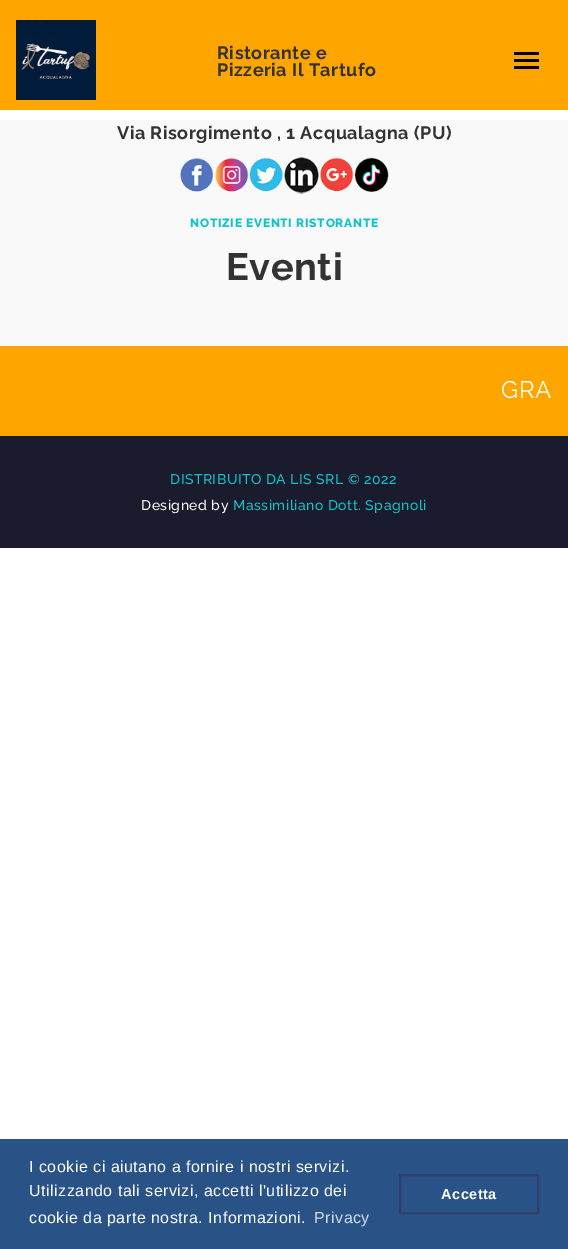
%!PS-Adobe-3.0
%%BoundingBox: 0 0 568 1249
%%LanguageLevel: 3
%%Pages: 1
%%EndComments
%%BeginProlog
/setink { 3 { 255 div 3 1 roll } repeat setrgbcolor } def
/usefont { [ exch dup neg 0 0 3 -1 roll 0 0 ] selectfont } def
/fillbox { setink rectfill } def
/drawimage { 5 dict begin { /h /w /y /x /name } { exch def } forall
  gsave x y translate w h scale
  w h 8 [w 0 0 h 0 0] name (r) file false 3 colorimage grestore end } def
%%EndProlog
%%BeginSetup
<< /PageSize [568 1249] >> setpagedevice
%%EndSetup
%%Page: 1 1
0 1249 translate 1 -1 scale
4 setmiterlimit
0 0 568 1249 255 255 255 fillbox
0 0 568 110 255 165 0 fillbox
(assets/img1.rgb) 16 20 80 80 drawimage
/Raleway-Bold 18 usefont
51 51 51 setink
217 59 moveto 0.5 0 (Ristorante e) ashow
217 76 moveto 0.5 0 (Pizzeria Il Tartufo) ashow
514 52 25 3 0 0 0 fillbox
514 59 25 3 0 0 0 fillbox
514 66 25 3 0 0 0 fillbox
0 120 568 226 249 249 250 fillbox
51 51 51 setink
117 139 moveto 0.5 0 (Via Risorgimento , 1 Acqualagna \(PU\)) ashow
(assets/img2.rgb) 180 158 34 36 drawimage
(assets/img3.rgb) 215 158 34 34 drawimage
(assets/img4.rgb) 249 157 34 35 drawimage
(assets/img5.rgb) 284 157 35 37 drawimage
(assets/img6.rgb) 320 157 34 35 drawimage
(assets/img7.rgb) 354 157 35 35 drawimage
/Raleway-ExtraBold 12 usefont
19 195 201 setink
190 227 moveto 0.7 0 (NOTIZIE EVENTI RISTORANTE) ashow
/Raleway-Bold 38 usefont
51 51 51 setink
226 280 moveto 0.5 0 (Eventi) ashow
0 346 568 90 255 165 0 fillbox
/Raleway-Regular 24 usefont
255 255 255 setink
501 398 moveto 0.5 0 (GRA) ashow
0 436 568 112 26 28 45 fillbox
/Raleway-Medium 14 usefont
19 195 201 setink
170 484 moveto 0.5 0 (DISTRIBUITO DA LIS SRL © 2022) ashow
255 255 255 setink
141 510 moveto 0.5 0 (Designed by) ashow
19 195 201 setink
233 510 moveto 0.5 0 (Massimiliano Dott. Spagnoli) ashow
0 1139 568 110 41 82 134 fillbox
/LiberationSans-Regular 16 usefont
255 255 255 setink
29 1172 moveto 0.5 0 (I cookie ci aiutano a fornire i nostri servizi.) ashow
29 1196 moveto 0.5 0 (Utilizzando tali servizi, accetti l'utilizzo dei) ashow
29 1223 moveto 0.5 0 (cookie da parte nostra. Informazioni.) ashow
212 220 231 setink
314 1223 moveto 0.5 0 (Privacy) ashow
49 62 107 setink
2 setlinewidth
400 1175 138 38 rectstroke
/LiberationSans-Bold 14.5 usefont
255 255 255 setink
441 1199 moveto 0.5 0 (Accetta) ashow
showpage
%%EOF
